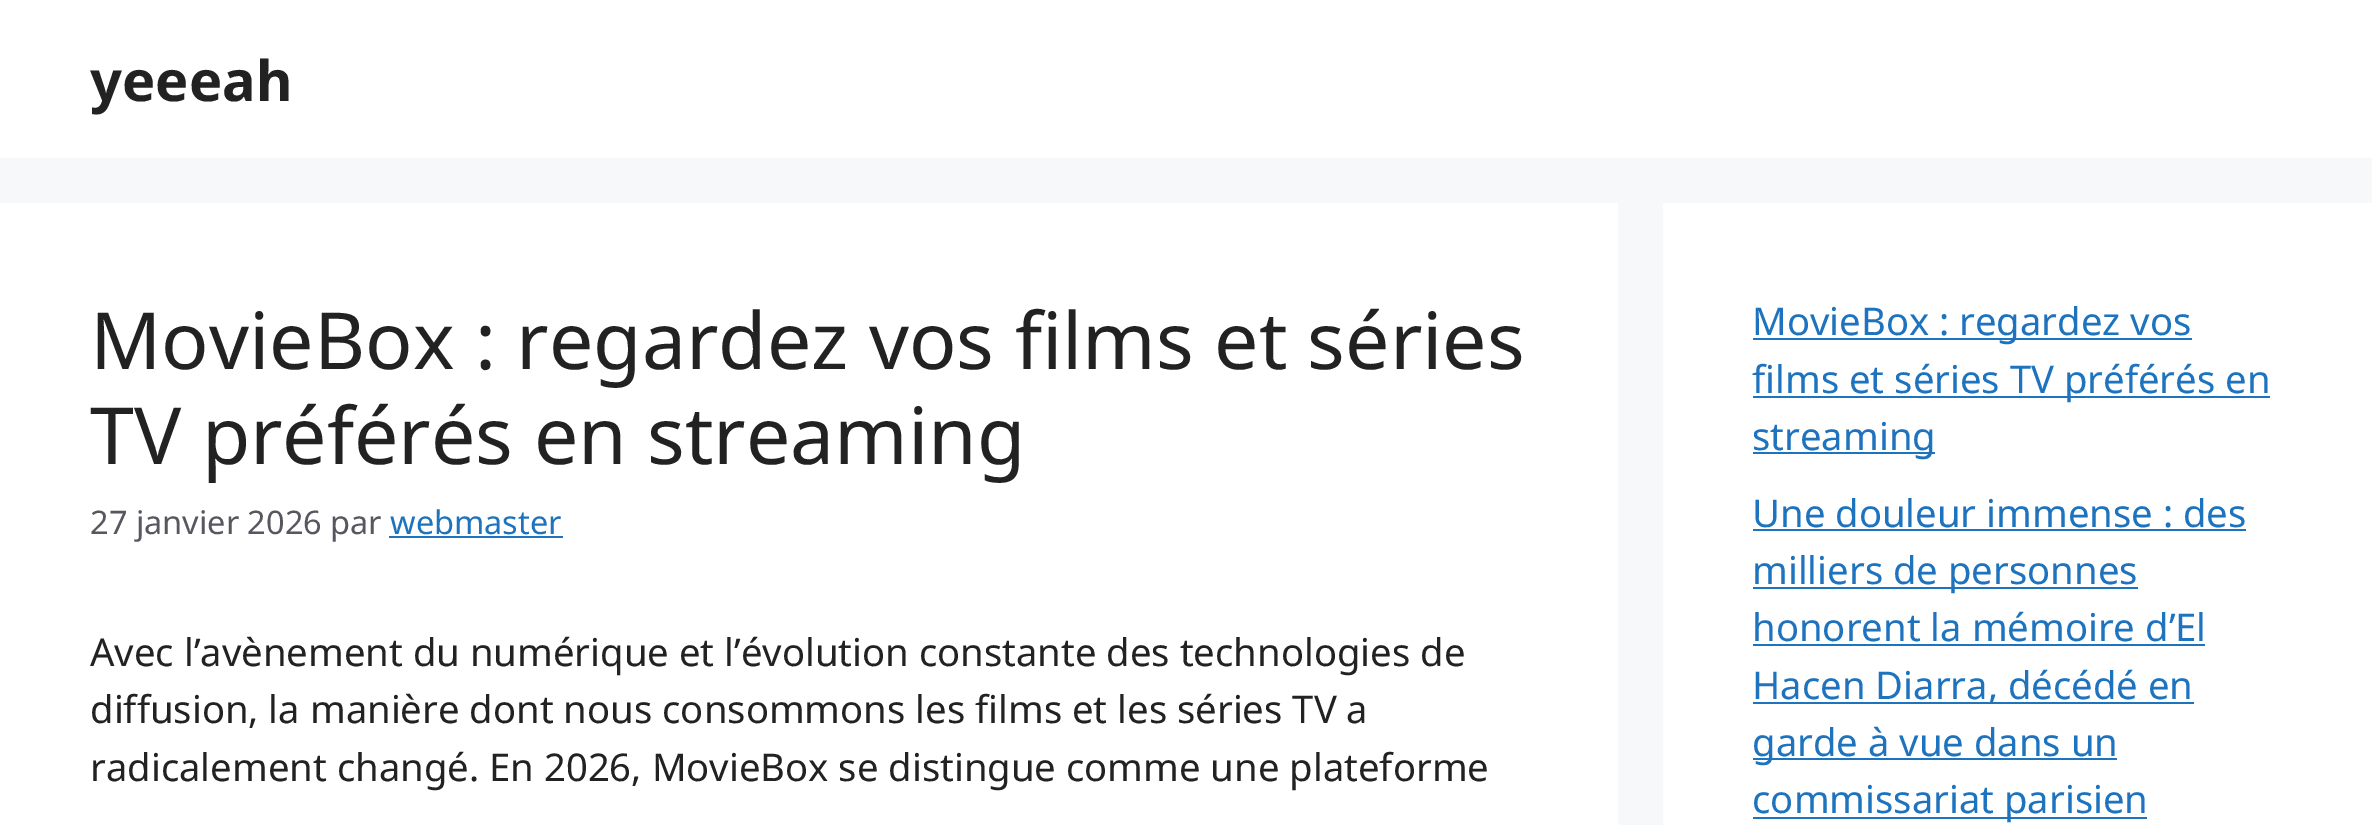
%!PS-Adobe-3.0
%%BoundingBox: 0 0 2372 825
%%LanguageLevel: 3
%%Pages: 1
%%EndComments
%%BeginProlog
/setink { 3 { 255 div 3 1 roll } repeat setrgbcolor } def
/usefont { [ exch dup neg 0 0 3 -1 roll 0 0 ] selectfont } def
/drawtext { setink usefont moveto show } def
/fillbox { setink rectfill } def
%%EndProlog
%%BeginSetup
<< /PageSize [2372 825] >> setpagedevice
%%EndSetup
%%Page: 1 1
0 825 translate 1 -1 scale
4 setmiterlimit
0 0 2372 825 247 248 249 fillbox
0 0 2372 158 255 255 255 fillbox
(yeeeah) 90 101 /NotoSans-Bold 56 34 34 34 drawtext
0 203 1618 622 255 255 255 fillbox
(MovieBox : regardez vos films et séries) 90 369 /NotoSans-Regular 78.75 34 34 34 drawtext
(TV préférés en streaming) 90 464 /NotoSans-Regular 78.75 34 34 34 drawtext
(27 janvier 2026 par) 90 534 /NotoSans-Regular 32.5 87 87 96 drawtext
(webmaster) 390 534 /NotoSans-Regular 32.5 30 115 190 drawtext
389 536 174 2 30 115 190 fillbox
(Avec l’avènement du numérique et l’évolution constante des technologies de) 90 666 /NotoSans-Regular 38.25 34 34 34 drawtext
(diffusion, la manière dont nous consommons les films et les séries TV a) 90 723 /NotoSans-Regular 38.25 34 34 34 drawtext
(radicalement changé. En 2026, MovieBox se distingue comme une plateforme) 90 781 /NotoSans-Regular 38.25 34 34 34 drawtext
1663 203 709 622 255 255 255 fillbox
1753 338 439 2 30 115 190 fillbox
(MovieBox : regardez vos) 1752 335 /NotoSans-Regular 38.25 30 115 190 drawtext
1753 396 517 2 30 115 190 fillbox
(films et séries TV préférés en) 1752 393 /NotoSans-Regular 38.25 30 115 190 drawtext
1753 452 182 2 30 115 190 fillbox
(streaming) 1752 450 /NotoSans-Regular 38.25 30 115 190 drawtext
(Une douleur immense : des) 1752 527 /NotoSans-Regular 38.25 30 115 190 drawtext
1753 529 493 2 30 115 190 fillbox
1753 587 385 2 30 115 190 fillbox
(milliers de personnes) 1752 584 /NotoSans-Regular 38.25 30 115 190 drawtext
(honorent la mémoire d’El) 1752 641 /NotoSans-Regular 38.25 30 115 190 drawtext
1753 644 452 2 30 115 190 fillbox
1753 702 441 2 30 115 190 fillbox
(Hacen Diarra, décédé en) 1752 699 /NotoSans-Regular 38.25 30 115 190 drawtext
1753 758 364 2 30 115 190 fillbox
(garde à vue dans un) 1752 756 /NotoSans-Regular 38.25 30 115 190 drawtext
1753 817 394 2 30 115 190 fillbox
(commissariat parisien) 1752 813 /NotoSans-Regular 38.25 30 115 190 drawtext
showpage
%%EOF
